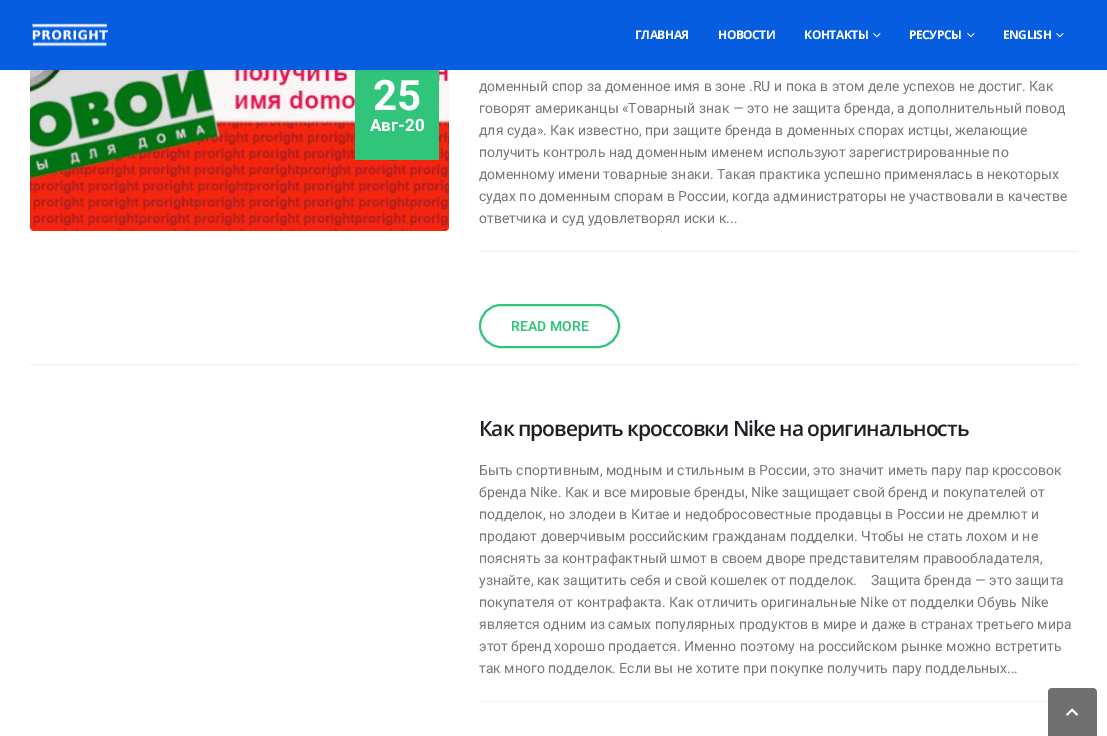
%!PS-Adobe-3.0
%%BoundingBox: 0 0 1107 736
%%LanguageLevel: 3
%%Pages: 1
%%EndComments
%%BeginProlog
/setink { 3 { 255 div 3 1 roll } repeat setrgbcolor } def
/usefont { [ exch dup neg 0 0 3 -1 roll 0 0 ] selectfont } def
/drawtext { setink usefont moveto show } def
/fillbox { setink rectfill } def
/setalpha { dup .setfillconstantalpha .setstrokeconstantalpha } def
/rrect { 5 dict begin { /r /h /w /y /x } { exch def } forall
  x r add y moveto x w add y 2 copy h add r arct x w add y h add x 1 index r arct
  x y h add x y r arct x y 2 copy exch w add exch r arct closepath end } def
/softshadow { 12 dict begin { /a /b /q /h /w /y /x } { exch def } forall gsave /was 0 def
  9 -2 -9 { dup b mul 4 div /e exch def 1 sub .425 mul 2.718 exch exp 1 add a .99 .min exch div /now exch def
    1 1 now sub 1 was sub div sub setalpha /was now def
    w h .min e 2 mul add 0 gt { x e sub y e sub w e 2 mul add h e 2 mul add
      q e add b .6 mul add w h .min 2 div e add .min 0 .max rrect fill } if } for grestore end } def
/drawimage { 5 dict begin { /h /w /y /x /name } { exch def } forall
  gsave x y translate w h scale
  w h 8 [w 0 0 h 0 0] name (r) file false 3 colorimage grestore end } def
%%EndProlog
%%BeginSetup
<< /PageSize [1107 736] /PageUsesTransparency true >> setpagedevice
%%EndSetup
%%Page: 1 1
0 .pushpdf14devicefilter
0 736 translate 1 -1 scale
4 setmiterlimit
0 0 1107 736 255 255 255 fillbox
(assets/img3.rgb) 30 70 419 161 drawimage
355 70 84 90 48 197 122 fillbox
0 0 0 setink
0 0 1107 70 0 1.5 0.06 softshadow
0 0 1107 70 6 93 224 fillbox
(assets/img1.rgb) 32 23 76 24 drawimage
/OpenSans-Bold 12 usefont
255 255 255 setink
635 39 moveto -0.5 0 (ГЛАВНАЯ) ashow
718 39 moveto -0.5 0 (НОВОСТИ) ashow
804 39 moveto -0.5 0 (КОНТАКТЫ) ashow
(assets/img2.rgb) 873 33 8 5 drawimage
909 39 moveto -0.5 0 (РЕСУРСЫ) ashow
(assets/img2.rgb) 967 33 8 5 drawimage
1003 39 moveto -0.5 0 (ENGLISH) ashow
(assets/img2.rgb) 1056 33 8 5 drawimage
30 364 1047 1 240 240 240 fillbox
(25) 373 110 /Roboto-Bold 42 255 255 255 drawtext
(Авг-20) 370 131 /Roboto-Bold 17 255 255 255 drawtext
(доменный спор за доменное имя в зоне .RU и пока в этом деле успехов не достиг. Как) 479 91 /Roboto-Regular 14 119 119 119 drawtext
(говорят американцы «Товарный знак — это не защита бренда, а дополнительный повод) 479 113 /Roboto-Regular 14 119 119 119 drawtext
(для суда». Как известно, при защите бренда в доменных спорах истцы, желающие) 479 135 /Roboto-Regular 14 119 119 119 drawtext
(получить контроль над доменным именем используют зарегистрированные по) 479 157 /Roboto-Regular 14 119 119 119 drawtext
(доменному имени товарные знаки. Такая практика успешно применялась в некоторых) 479 179 /Roboto-Regular 14 119 119 119 drawtext
(судах по доменным спорам в России, когда администраторы не участвовали в качестве) 479 201 /Roboto-Regular 14 119 119 119 drawtext
(ответчика и суд удовлетворял иски к...) 479 223 /Roboto-Regular 14 119 119 119 drawtext
479 251 598 1 240 240 240 fillbox
48 197 122 setink
2 setlinewidth
480 305 139 42 21 rrect stroke
(READ MORE) 511 331 /Roboto-SemiBold 14 48 197 122 drawtext
/OpenSans-SemiBold 21 usefont
29 33 39 setink
479 436 moveto -1.05 0 (Как проверить кроссовки Nike на оригинальность) ashow
(Быть спортивным, модным и стильным в России, это значит иметь пару пар кроссовок) 479 475 /Roboto-Regular 14 119 119 119 drawtext
(бренда Nike. Как и все мировые бренды, Nike защищает свой бренд и покупателей от) 479 497 /Roboto-Regular 14 119 119 119 drawtext
(подделок, но злодеи в Китае и недобросовестные продавцы в России не дремлют и) 479 519 /Roboto-Regular 14 119 119 119 drawtext
(продают доверчивым российским гражданам подделки. Чтобы не стать лохом и не) 479 541 /Roboto-Regular 14 119 119 119 drawtext
(пояснять за контрафактный шмот в своем дворе представителям правообладателя,) 479 563 /Roboto-Regular 14 119 119 119 drawtext
(узнайте, как защитить себя и свой кошелек от подделок.) 479 585 /Roboto-Regular 14 119 119 119 drawtext
(Защита бренда — это защита) 871 585 /Roboto-Regular 14 119 119 119 drawtext
(покупателя от контрафакта. Как отличить оригинальные Nike от подделки Обувь Nike) 479 607 /Roboto-Regular 14 119 119 119 drawtext
(является одним из самых популярных продуктов в мире и даже в странах третьего мира) 479 629 /Roboto-Regular 14 119 119 119 drawtext
(этот бренд хорошо продается. Именно поэтому на российском рынке можно встретить) 479 651 /Roboto-Regular 14 119 119 119 drawtext
(так много подделок. Если вы не хотите при покупке получить пару поддельных...) 479 673 /Roboto-Regular 14 119 119 119 drawtext
479 701 598 1 240 240 240 fillbox
0.75 setalpha
64 64 64 setink
1052 688 moveto 1093 688 lineto 1095 688 1097 690 1097 692 curveto 1097 736 lineto 1048 736 lineto 1048 692 lineto 1048 690 1050 688 1052 688 curveto closepath fill
1 setalpha
(assets/img4.rgb) 1066 708 12 8 drawimage
.poppdf14devicefilter showpage
%%EOF
